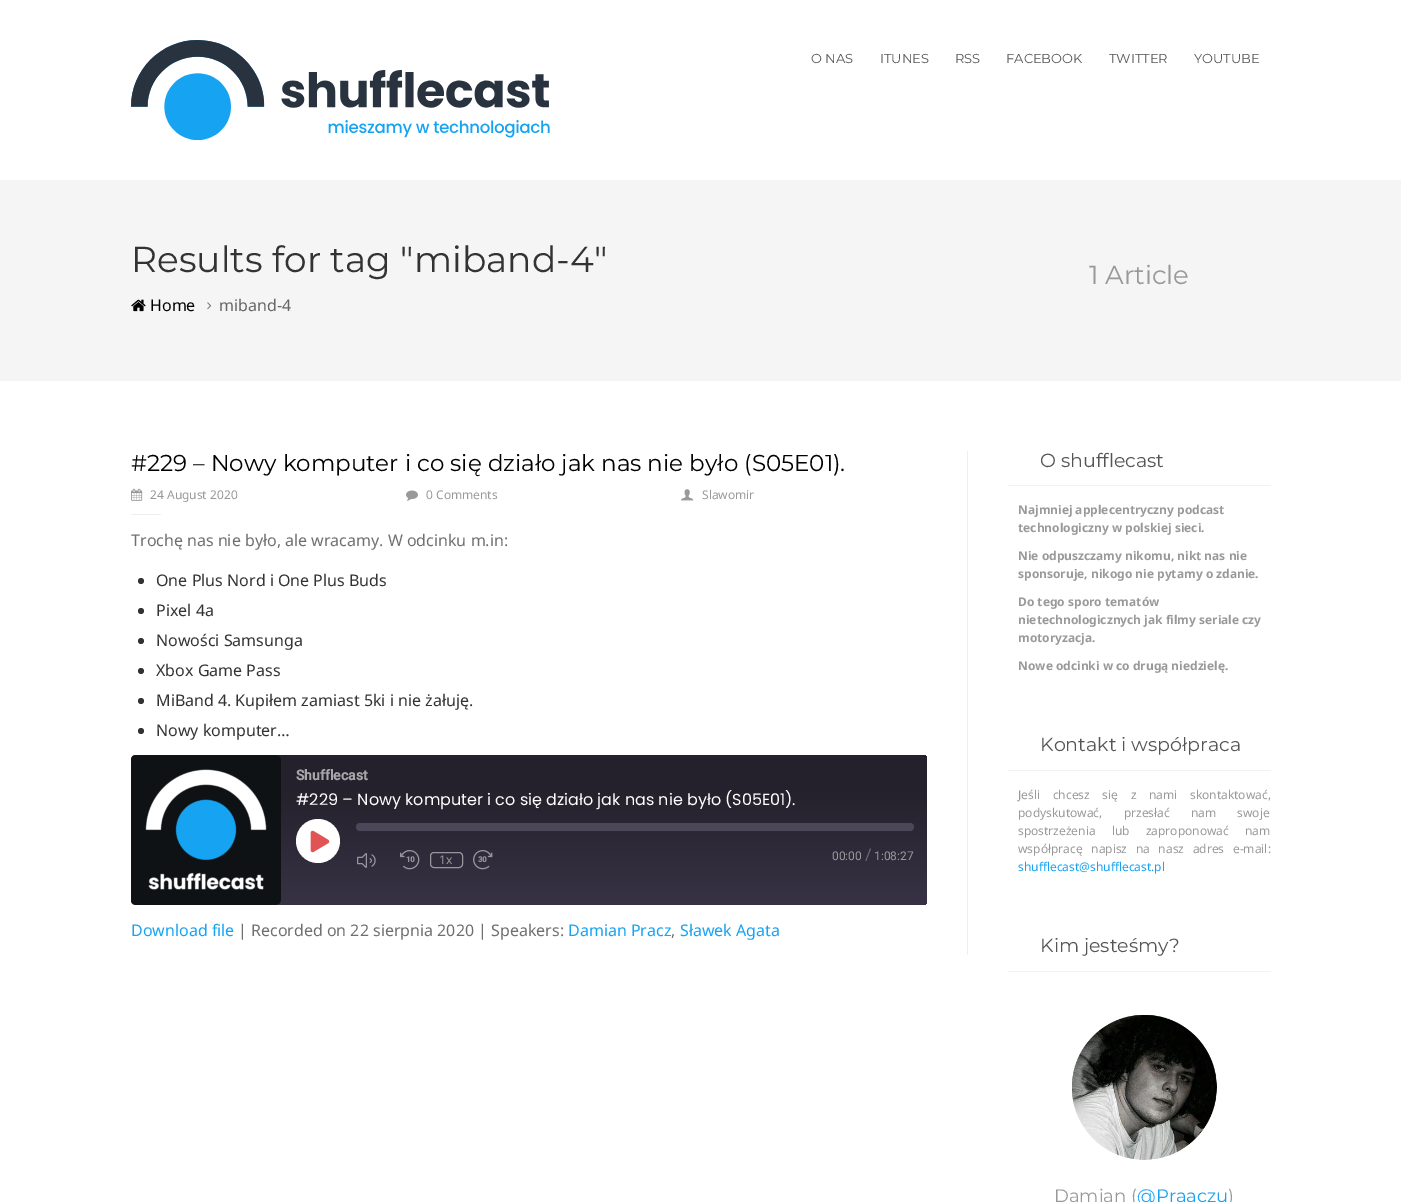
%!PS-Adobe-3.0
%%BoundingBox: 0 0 1401 1202
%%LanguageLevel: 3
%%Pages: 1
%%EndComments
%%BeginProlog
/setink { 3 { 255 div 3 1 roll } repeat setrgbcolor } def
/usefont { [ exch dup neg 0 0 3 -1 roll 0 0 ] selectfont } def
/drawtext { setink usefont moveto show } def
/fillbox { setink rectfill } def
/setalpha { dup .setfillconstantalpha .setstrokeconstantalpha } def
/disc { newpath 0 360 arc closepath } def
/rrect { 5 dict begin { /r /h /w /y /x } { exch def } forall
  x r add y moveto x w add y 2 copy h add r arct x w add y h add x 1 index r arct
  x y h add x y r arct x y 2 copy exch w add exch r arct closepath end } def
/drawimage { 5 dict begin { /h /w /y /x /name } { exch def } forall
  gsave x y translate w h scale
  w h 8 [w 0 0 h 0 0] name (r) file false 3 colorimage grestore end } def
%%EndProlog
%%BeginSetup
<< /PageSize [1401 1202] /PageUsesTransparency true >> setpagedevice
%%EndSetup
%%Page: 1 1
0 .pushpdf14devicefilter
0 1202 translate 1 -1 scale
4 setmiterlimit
0 0 1401 1202 255 255 255 fillbox
(assets/img1.rgb) 131 40 419 100 drawimage
(O NAS) 811 63 /Montserrat-Regular 13 85 85 85 drawtext
(ITUNES) 880 63 /Montserrat-Regular 13 85 85 85 drawtext
(RSS) 955 63 /Montserrat-Regular 13 85 85 85 drawtext
(FACEBOOK) 1006 63 /Montserrat-Regular 13 85 85 85 drawtext
(TWITTER) 1109 63 /Montserrat-Regular 13 85 85 85 drawtext
(YOUTUBE) 1194 63 /Montserrat-Regular 13 85 85 85 drawtext
0 180 1401 201 245 245 245 fillbox
(Results for tag "miband-4") 131 272 /Montserrat-Regular 36 51 51 51 drawtext
(assets/img2.rgb) 131 299 15 13 drawimage
(Home) 150 311 /NotoSans-Regular 16 0 0 0 drawtext
(assets/img3.rgb) 207 302 5 8 drawimage
(miband-4) 219 311 /NotoSans-Regular 16 102 102 102 drawtext
(1 Article) 1089 284 /Montserrat-Regular 26 153 153 153 drawtext
967 451 1 504 238 238 238 fillbox
(#229 – Nowy komputer i co się działo jak nas nie było \(S05E01\).) 131 471 /Montserrat-Regular 23 0 0 0 drawtext
(assets/img4.rgb) 131 488 12 13 drawimage
(24 August 2020) 150 499 /NotoSans-Regular 12 153 153 153 drawtext
(assets/img5.rgb) 406 490 12 11 drawimage
(0 Comments) 426 499 /NotoSans-Regular 12 153 153 153 drawtext
(assets/img6.rgb) 681 489 13 12 drawimage
(Slawomir) 702 499 /NotoSans-Regular 12 153 153 153 drawtext
131 514 30 1 238 238 238 fillbox
(Trochę nas nie było, ale wracamy. W odcinku m.in:) 131 546 /NotoSans-Regular 16 111 111 111 drawtext
51 51 51 setink
141 581 3 disc fill
(One Plus Nord i One Plus Buds) 156 586 /NotoSans-Regular 16 51 51 51 drawtext
141 611 3 disc fill
(Pixel 4a) 156 616 /NotoSans-Regular 16 51 51 51 drawtext
141 641 3 disc fill
(Nowości Samsunga) 156 646 /NotoSans-Regular 16 51 51 51 drawtext
141 671 3 disc fill
(Xbox Game Pass) 156 676 /NotoSans-Regular 16 51 51 51 drawtext
141 701 3 disc fill
(MiBand 4. Kupiłem zamiast 5ki i nie żałuję.) 156 706 /NotoSans-Regular 16 51 51 51 drawtext
141 731 3 disc fill
(Nowy komputer…) 156 736 /NotoSans-Regular 16 51 51 51 drawtext
gsave 131 755 796 150 4 rrect clip newpath
<< /ShadingType 2 /ColorSpace /DeviceRGB /Coords [529 907 529 753] /Extend [true true] /Function << /FunctionType 3 /Domain [0 1] /Functions [<< /FunctionType 2 /Domain [0 1] /C0 [0.22 0.2 0.267] /C1 [0.22 0.2 0.267] /N 1 >> << /FunctionType 2 /Domain [0 1] /C0 [0.22 0.2 0.267] /C1 [0.141 0.129 0.173] /N 1 >> << /FunctionType 2 /Domain [0 1] /C0 [0.141 0.129 0.173] /C1 [0.141 0.129 0.173] /N 1 >>] /Bounds [0.01 0.78] /Encode [0 1 0 1 0 1] >> >> shfill grestore
(assets/img7.rgb) 131 755 150 150 drawimage
(Shufflecast) 296 780 /Roboto-Bold 14 167 166 171 drawtext
(#229 – Nowy komputer i co się działo jak nas nie było \(S05E01\).) 296 805 /Poppins-Regular 16 255 255 255 drawtext
318 841 22 disc fill
(assets/img8.rgb) 310 830 20 23 drawimage
76 70 89 setink
356 823 558 8 4 rrect fill
(assets/img9.rgb) 357 853 19 15 drawimage
(assets/img10.rgb) 400 850 20 20 drawimage
0.5 setalpha
255 255 255 setink
430.5 852.5 32 15 3.5 rrect stroke
1 setalpha
(1x) 439 864 /NotoSans-Regular 12 153 153 153 drawtext
(assets/img11.rgb) 473 850 20 20 drawimage
(00:00) 832 860 /Roboto-Regular 12 153 153 153 drawtext
(/) 865 860 /Roboto-Regular 16 110 107 117 drawtext
(1:08:27) 874 860 /Roboto-Regular 12 153 153 153 drawtext
(Download file) 131 936 /NotoSans-Regular 16 22 163 242 drawtext
(| Recorded on 22 sierpnia 2020 | Speakers:) 238 936 /NotoSans-Regular 16 111 111 111 drawtext
(Damian Pracz) 568 936 /NotoSans-Regular 16 22 163 242 drawtext
(,) 671 936 /NotoSans-Regular 16 111 111 111 drawtext
(Sławek Agata) 680 936 /NotoSans-Regular 16 22 163 242 drawtext
1008 485 263 1 242 242 242 fillbox
(O shufflecast) 1040 467 /Montserrat-Regular 19 85 85 85 drawtext
(Najmniej applecentryczny podcast) 1018 514 /NotoSans-Bold 12 153 153 153 drawtext
(technologiczny w polskiej sieci.) 1018 532 /NotoSans-Bold 12 153 153 153 drawtext
(Nie odpuszczamy nikomu, nikt nas nie) 1018 560 /NotoSans-Bold 12 153 153 153 drawtext
(sponsoruje, nikogo nie pytamy o zdanie.) 1018 578 /NotoSans-Bold 12 153 153 153 drawtext
(Do tego sporo tematów) 1018 606 /NotoSans-Bold 12 153 153 153 drawtext
(nietechnologicznych jak filmy seriale czy) 1018 624 /NotoSans-Bold 12 153 153 153 drawtext
(motoryzacja.) 1018 642 /NotoSans-Bold 12 153 153 153 drawtext
(Nowe odcinki w co drugą niedzielę.) 1018 670 /NotoSans-Bold 12 153 153 153 drawtext
1008 770 263 1 242 242 242 fillbox
(Kontakt i współpraca) 1040 751 /Montserrat-Regular 19 85 85 85 drawtext
/NotoSans-Regular 12 usefont
153 153 153 setink
1018 799 moveto 9.5 0 32 (Jeśli chcesz się z nami skontaktować,) widthshow
1018 817 moveto 18 0 32 (podyskutować, przesłać nam swoje) widthshow
1018 835 moveto 13 0 32 (spostrzeżenia lub zaproponować nam) widthshow
1018 853 moveto 5.5 0 32 (współpracę napisz na nasz adres e-mail:) widthshow
(shufflecast@shufflecast.pl) 1018 871 /NotoSans-Regular 12 22 163 242 drawtext
1008 971 263 1 242 242 242 fillbox
(Kim jesteśmy?) 1040 952 /Montserrat-Regular 19 85 85 85 drawtext
(assets/img12.rgb) 1072 1015 145 145 drawimage
(Damian \() 1054 1202 /Montserrat-Regular 18 153 153 153 drawtext
(@Praaczu) 1137 1202 /Montserrat-Regular 18 22 163 242 drawtext
(\)) 1228 1202 /Montserrat-Regular 18 153 153 153 drawtext
.poppdf14devicefilter showpage
%%EOF
